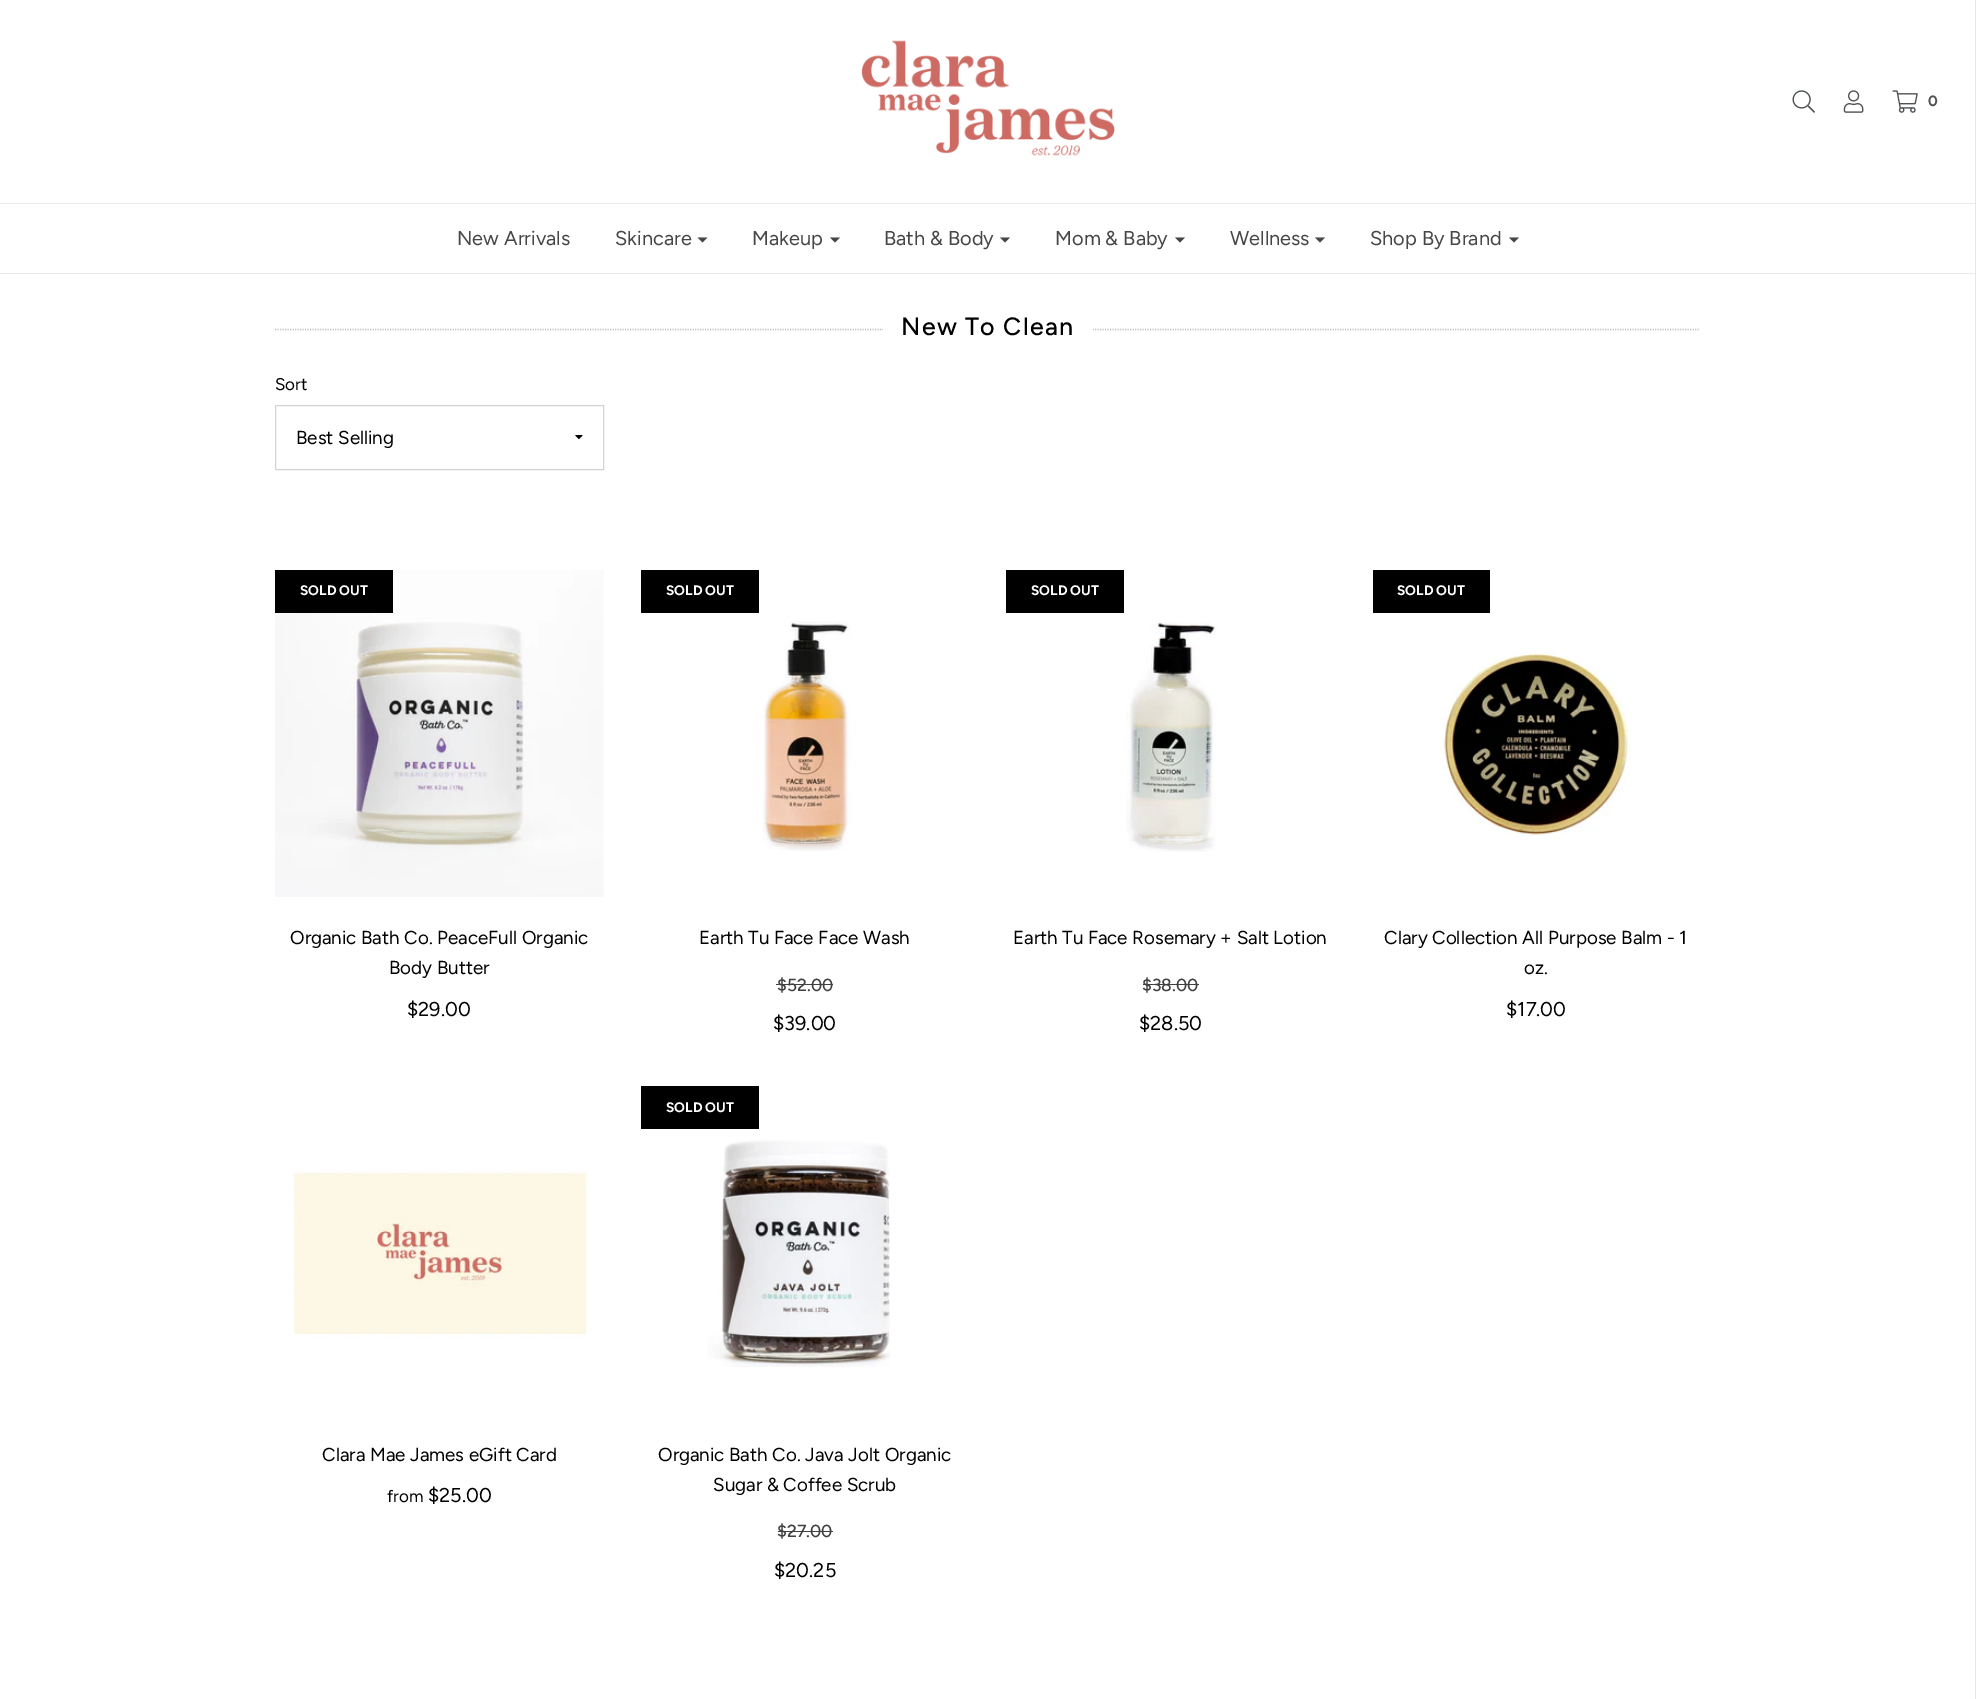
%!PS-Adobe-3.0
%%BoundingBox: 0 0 1976 1699
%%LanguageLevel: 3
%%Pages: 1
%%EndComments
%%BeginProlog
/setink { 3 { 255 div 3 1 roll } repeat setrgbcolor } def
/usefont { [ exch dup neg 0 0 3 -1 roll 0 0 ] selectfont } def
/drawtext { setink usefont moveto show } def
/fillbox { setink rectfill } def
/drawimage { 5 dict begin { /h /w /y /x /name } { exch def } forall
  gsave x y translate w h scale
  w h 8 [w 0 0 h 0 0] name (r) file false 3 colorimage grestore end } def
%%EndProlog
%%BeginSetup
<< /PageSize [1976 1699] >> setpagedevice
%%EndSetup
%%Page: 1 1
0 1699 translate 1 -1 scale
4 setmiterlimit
0 0 1976 1699 255 255 255 fillbox
1975 0 1 1699 230 230 230 fillbox
(assets/img1.rgb) 861 40 254 116 drawimage
(assets/img2.rgb) 1792 90 23 23 drawimage
(assets/img3.rgb) 1843 90 21 23 drawimage
(assets/img4.rgb) 1892 90 26 23 drawimage
(0) 1928 106 /Figtree-Bold 15 78 82 84 drawtext
0 203 1975 1 235 235 235 fillbox
0 273 1975 1 235 235 235 fillbox
(New Arrivals) 457 245 /Figtree-Regular 20 70 70 70 drawtext
(Skincare) 615 245 /Figtree-Regular 20 70 70 70 drawtext
697.5 237.5 moveto 707.5 237.5 lineto 702.5 242.5 lineto closepath fill
(Makeup) 752 245 /Figtree-Regular 20 70 70 70 drawtext
830 237.5 moveto 840 237.5 lineto 835 242.5 lineto closepath fill
(Bath & Body) 884 245 /Figtree-Regular 20 70 70 70 drawtext
1000 237.5 moveto 1010 237.5 lineto 1005 242.5 lineto closepath fill
(Mom & Baby) 1055 245 /Figtree-Regular 20 70 70 70 drawtext
1175 237.5 moveto 1185 237.5 lineto 1180 242.5 lineto closepath fill
(Wellness) 1230 245 /Figtree-Regular 20 70 70 70 drawtext
1315 237.5 moveto 1325 237.5 lineto 1320 242.5 lineto closepath fill
(Shop By Brand) 1370 245 /Figtree-Regular 20 70 70 70 drawtext
1509 237.5 moveto 1519 237.5 lineto 1514 242.5 lineto closepath fill
191 191 191 setink
1.2 setlinewidth
[1.25 1.25] 0 setdash
275 329.5 moveto 1700 329.5 lineto stroke
883 328 210 3 255 255 255 fillbox
/Figtree-Medium 25 usefont
0 0 0 setink
901 335 moveto 1.25 0 (New To Clean) ashow
(Sort) 275 390 /Figtree-Regular 17 0 0 0 drawtext
212 212 212 setink
1 setlinewidth
[] 0 setdash
275.5 405.5 328 64 rectstroke
(Best Selling) 296 444 /Figtree-Regular 18.75 0 0 0 drawtext
(assets/img5.rgb) 575 435 8 5 drawimage
(assets/img6.rgb) 275 570 329 327 drawimage
275 570 118 43 0 0 0 fillbox
(SOLD OUT) 300 595 /Figtree-Bold 13.75 255 255 255 drawtext
(Organic Bath Co. PeaceFull Organic) 290 944 /Figtree-Regular 18.75 0 0 0 drawtext
(Body Butter) 389 974 /Figtree-Regular 18.75 0 0 0 drawtext
($29.00) 407 1016 /Figtree-Regular 20 0 0 0 drawtext
641 570 118 43 0 0 0 fillbox
(SOLD OUT) 666 595 /Figtree-Bold 13.75 255 255 255 drawtext
(assets/img7.rgb) 763 621 88 230 drawimage
(Earth Tu Face Face Wash) 699 944 /Figtree-Regular 18.75 0 0 0 drawtext
($52.00) 777 991 /Figtree-Medium 17.5 64 64 64 drawtext
776 984 57 1 64 64 64 fillbox
($39.00) 773 1030 /Figtree-Regular 20 0 0 0 drawtext
1006 570 118 43 0 0 0 fillbox
(SOLD OUT) 1031 595 /Figtree-Bold 13.75 255 255 255 drawtext
(assets/img8.rgb) 1126 622 91 230 drawimage
(Earth Tu Face Rosemary + Salt Lotion) 1013 944 /Figtree-Regular 18.75 0 0 0 drawtext
($38.00) 1142 991 /Figtree-Medium 17.5 64 64 64 drawtext
1143 984 56 1 64 64 64 fillbox
($28.50) 1139 1030 /Figtree-Regular 20 0 0 0 drawtext
1373 570 117 43 0 0 0 fillbox
(SOLD OUT) 1397 595 /Figtree-Bold 13.75 255 255 255 drawtext
(assets/img9.rgb) 1443 651 190 189 drawimage
(Clary Collection All Purpose Balm - 1) 1384 944 /Figtree-Regular 18.75 0 0 0 drawtext
(oz.) 1524 974 /Figtree-Regular 18.75 0 0 0 drawtext
($17.00) 1506 1016 /Figtree-Regular 20 0 0 0 drawtext
(assets/img10.rgb) 293 1171 294 169 drawimage
(Clara Mae James eGift Card) 322 1461 /Figtree-Regular 18.75 0 0 0 drawtext
(from) 387 1502 /Figtree-Regular 17 0 0 0 drawtext
($25.00) 428 1502 /Figtree-Regular 20 0 0 0 drawtext
641 1086 118 43 0 0 0 fillbox
(SOLD OUT) 666 1112 /Figtree-Bold 13.75 255 255 255 drawtext
(assets/img11.rgb) 708 1140 182 227 drawimage
(Organic Bath Co. Java Jolt Organic) 658 1461 /Figtree-Regular 18.75 0 0 0 drawtext
(Sugar & Coffee Scrub) 713 1491 /Figtree-Regular 18.75 0 0 0 drawtext
($27.00) 777 1537 /Figtree-Medium 17.5 64 64 64 drawtext
778 1531 55 1 64 64 64 fillbox
($20.25) 774 1577 /Figtree-Regular 20 0 0 0 drawtext
showpage
%%EOF
